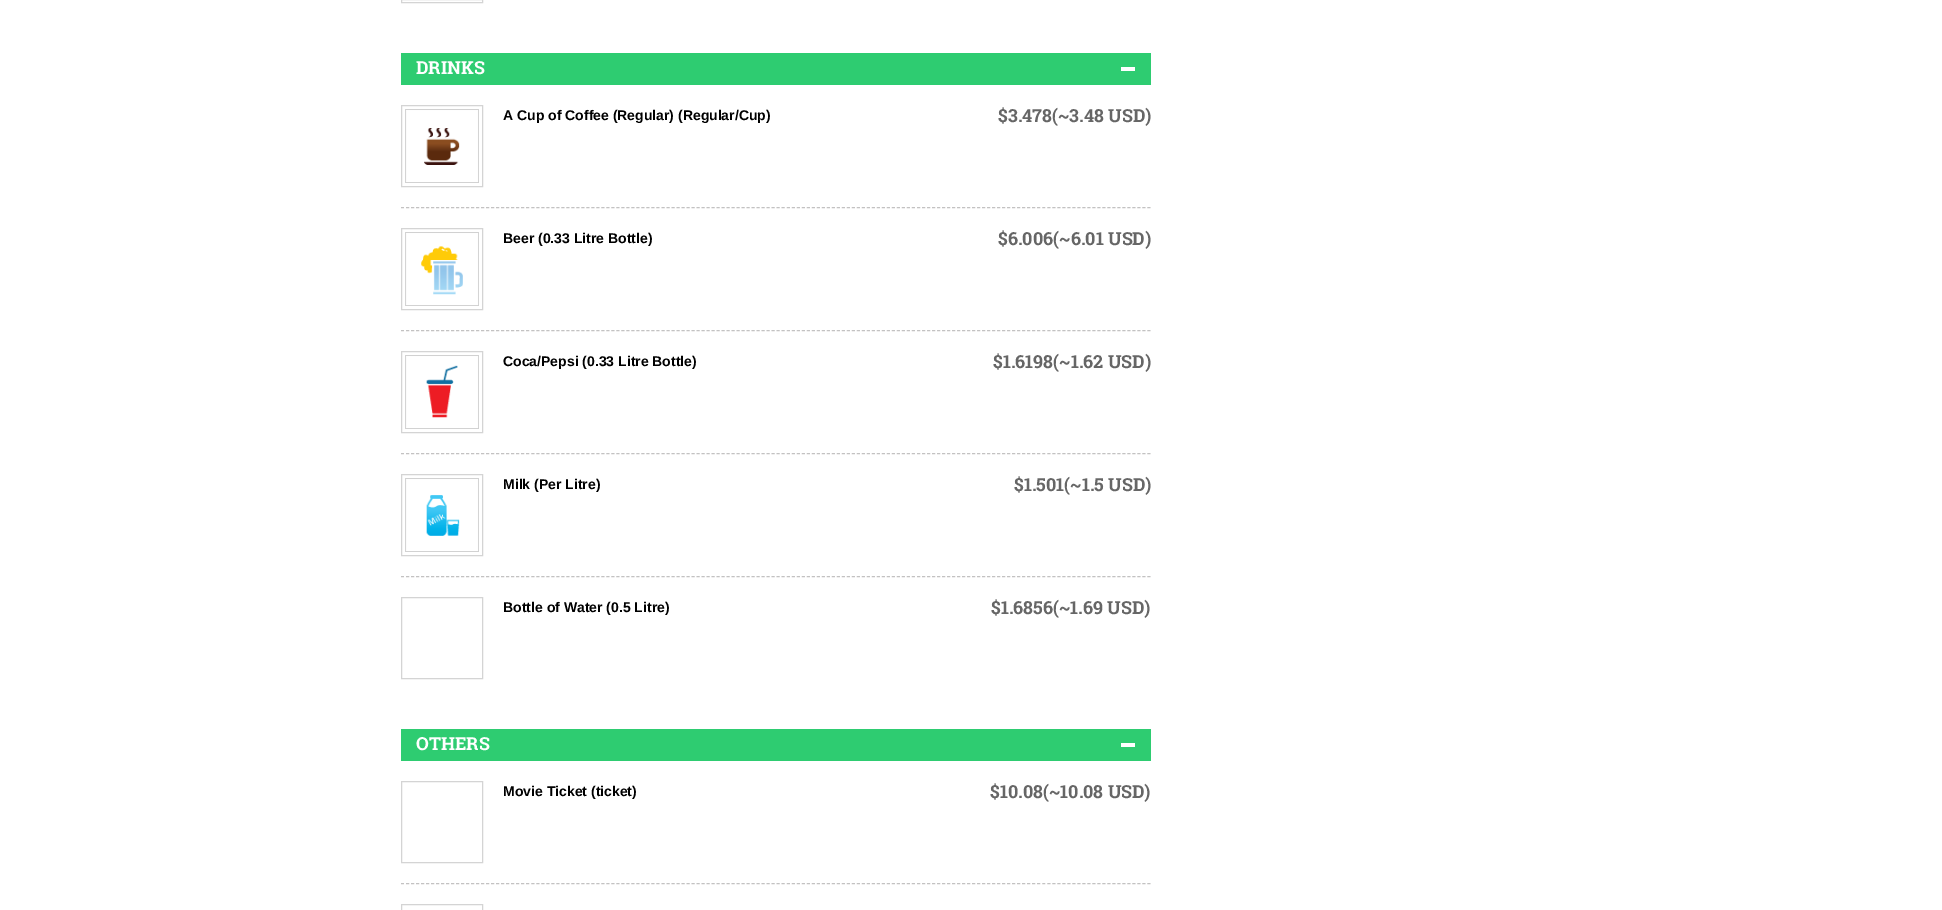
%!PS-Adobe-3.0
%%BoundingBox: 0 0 1942 910
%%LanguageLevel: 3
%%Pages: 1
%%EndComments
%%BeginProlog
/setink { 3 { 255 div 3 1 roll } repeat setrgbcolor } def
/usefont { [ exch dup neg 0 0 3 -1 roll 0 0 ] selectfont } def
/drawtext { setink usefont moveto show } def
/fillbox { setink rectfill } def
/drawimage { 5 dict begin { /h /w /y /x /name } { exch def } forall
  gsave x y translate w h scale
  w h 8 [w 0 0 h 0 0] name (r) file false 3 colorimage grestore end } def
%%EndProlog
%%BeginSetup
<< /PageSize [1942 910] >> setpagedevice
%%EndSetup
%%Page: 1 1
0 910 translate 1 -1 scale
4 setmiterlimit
0 0 1942 910 255 255 255 fillbox
212 212 212 setink
401.5 -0.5 81 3 rectstroke
401 53 750 32 46 204 113 fillbox
(DRINKS) 416 74 /RobotoSlab-Bold 18 255 255 255 drawtext
1121 67 14 4 255 255 255 fillbox
195 194 194 setink
[3 2.01] 0 setdash
401 207.5 moveto 1151 207.5 lineto stroke
212 212 212 setink
[] 0 setdash
401.5 105.5 81 81 rectstroke
(assets/img1.rgb) 405 109 74 74 drawimage
(A Cup of Coffee \(Regular\) \(Regular/Cup\)) 503 120 /LiberationSans-Bold 14 0 0 0 drawtext
($3.478\(~3.48 USD\)) 998 122 /RobotoSlab-Bold 18 102 102 102 drawtext
195 194 194 setink
[3 2.01] 0 setdash
401 330.5 moveto 1151 330.5 lineto stroke
212 212 212 setink
[] 0 setdash
401.5 228.5 81 81 rectstroke
(assets/img2.rgb) 405 232 74 74 drawimage
(Beer \(0.33 Litre Bottle\)) 503 243 /LiberationSans-Bold 14 0 0 0 drawtext
($6.006\(~6.01 USD\)) 998 245 /RobotoSlab-Bold 18 102 102 102 drawtext
195 194 194 setink
[3 2.01] 0 setdash
401 453.5 moveto 1151 453.5 lineto stroke
212 212 212 setink
[] 0 setdash
401.5 351.5 81 81 rectstroke
(assets/img3.rgb) 405 355 74 74 drawimage
(Coca/Pepsi \(0.33 Litre Bottle\)) 503 366 /LiberationSans-Bold 14 0 0 0 drawtext
($1.6198\(~1.62 USD\)) 993 368 /RobotoSlab-Bold 18 102 102 102 drawtext
195 194 194 setink
[3 2.01] 0 setdash
401 576.5 moveto 1151 576.5 lineto stroke
212 212 212 setink
[] 0 setdash
401.5 474.5 81 81 rectstroke
(assets/img4.rgb) 405 478 74 74 drawimage
(Milk \(Per Litre\)) 503 489 /LiberationSans-Bold 14 0 0 0 drawtext
($1.501\(~1.5 USD\)) 1014 491 /RobotoSlab-Bold 18 102 102 102 drawtext
212 212 212 setink
401.5 597.5 81 81 rectstroke
(Bottle of Water \(0.5 Litre\)) 503 612 /LiberationSans-Bold 14 0 0 0 drawtext
($1.6856\(~1.69 USD\)) 991 614 /RobotoSlab-Bold 18 102 102 102 drawtext
401 729 750 32 46 204 113 fillbox
(OTHERS) 416 750 /RobotoSlab-Bold 18 255 255 255 drawtext
1121 743 14 4 255 255 255 fillbox
195 194 194 setink
[3 2.01] 0 setdash
401 883.5 moveto 1151 883.5 lineto stroke
212 212 212 setink
[] 0 setdash
401.5 781.5 81 81 rectstroke
(Movie Ticket \(ticket\)) 503 796 /LiberationSans-Bold 14 0 0 0 drawtext
($10.08\(~10.08 USD\)) 990 798 /RobotoSlab-Bold 18 102 102 102 drawtext
212 212 212 setink
401.5 904.5 81 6 rectstroke
showpage
%%EOF
